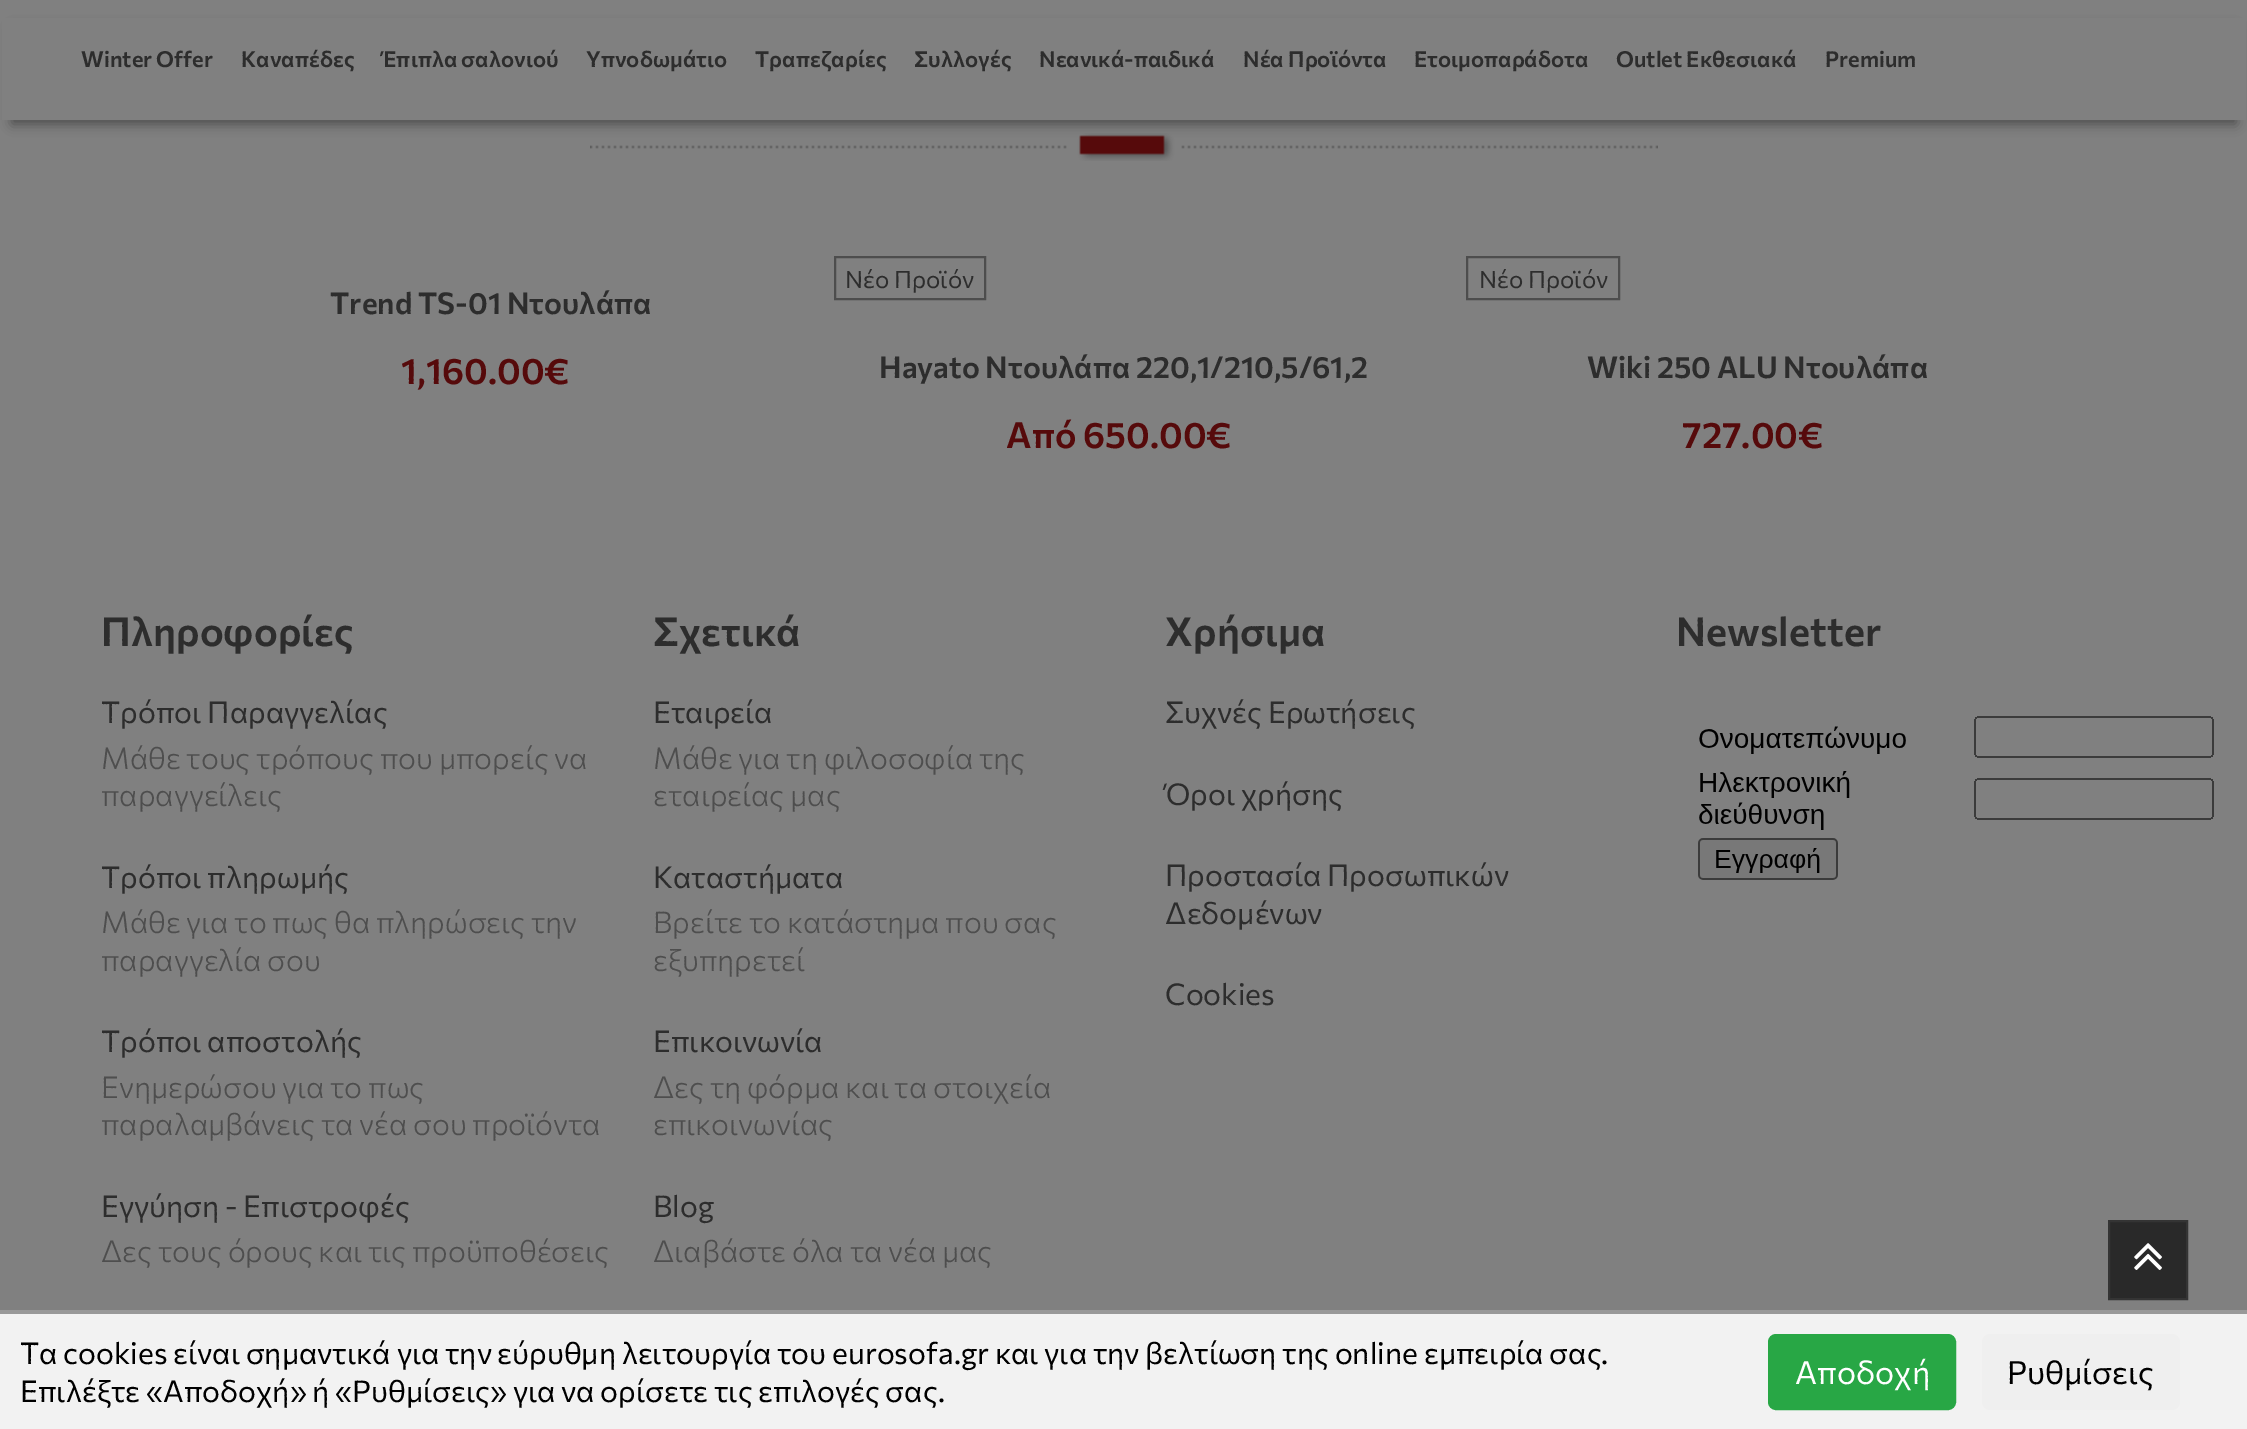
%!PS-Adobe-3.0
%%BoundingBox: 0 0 2247 1429
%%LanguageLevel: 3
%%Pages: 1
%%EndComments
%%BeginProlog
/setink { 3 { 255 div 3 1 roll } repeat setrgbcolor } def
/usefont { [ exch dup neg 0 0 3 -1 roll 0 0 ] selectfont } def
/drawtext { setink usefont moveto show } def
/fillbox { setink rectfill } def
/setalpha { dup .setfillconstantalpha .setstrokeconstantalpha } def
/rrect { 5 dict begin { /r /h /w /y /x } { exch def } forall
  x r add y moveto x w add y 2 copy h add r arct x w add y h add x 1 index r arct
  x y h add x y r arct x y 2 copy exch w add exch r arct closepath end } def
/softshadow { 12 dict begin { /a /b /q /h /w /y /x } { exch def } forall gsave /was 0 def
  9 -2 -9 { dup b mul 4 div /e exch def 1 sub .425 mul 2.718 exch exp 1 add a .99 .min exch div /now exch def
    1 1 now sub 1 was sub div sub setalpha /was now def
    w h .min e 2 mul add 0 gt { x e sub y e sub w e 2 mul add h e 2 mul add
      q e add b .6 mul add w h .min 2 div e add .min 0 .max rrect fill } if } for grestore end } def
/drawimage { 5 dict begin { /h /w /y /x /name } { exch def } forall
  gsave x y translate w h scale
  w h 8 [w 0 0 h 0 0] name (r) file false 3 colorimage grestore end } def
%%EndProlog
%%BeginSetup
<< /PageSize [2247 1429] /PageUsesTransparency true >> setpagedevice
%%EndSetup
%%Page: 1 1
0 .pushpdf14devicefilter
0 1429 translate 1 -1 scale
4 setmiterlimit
0 0 2247 1429 128 128 128 fillbox
(assets/img1.rgb) 590 133 1068 28 drawimage
0 0 0 setink
12 28 2224 96 0 6 0.4 softshadow
2 18 2244 102 128 128 128 fillbox
(Winter Offer) 81 67 /Commissioner-SemiBold 22 45 45 45 drawtext
(Καναπέδες) 241 67 /Commissioner-SemiBold 22 45 45 45 drawtext
(Έπιπλα σαλονιού) 382 67 /Commissioner-SemiBold 22 45 45 45 drawtext
(Υπνοδωμάτιο) 586 67 /Commissioner-SemiBold 22 45 45 45 drawtext
(Τραπεζαρίες) 755 67 /Commissioner-SemiBold 22 45 45 45 drawtext
(Συλλογές) 914 67 /Commissioner-SemiBold 22 45 45 45 drawtext
(Νεανικά-παιδικά) 1039 67 /Commissioner-SemiBold 22 45 45 45 drawtext
(Νέα Προϊόντα) 1243 67 /Commissioner-SemiBold 22 45 45 45 drawtext
(Ετοιμοπαράδοτα) 1414 67 /Commissioner-SemiBold 22 45 45 45 drawtext
(Outlet Εκθεσιακά) 1616 67 /Commissioner-SemiBold 22 45 45 45 drawtext
(Premium) 1825 67 /Commissioner-SemiBold 22 45 45 45 drawtext
(Trend TS-01 Ντουλάπα) 330 314 /Commissioner-SemiBold 30 45 45 45 drawtext
(1,160.00€) 401 384 /Commissioner-SemiBold 36 86 10 11 drawtext
77 77 77 setink
2 setlinewidth
835 257 150 42 rectstroke
(Νέο Προϊόν) 845 288 /Commissioner-Regular 24 45 45 45 drawtext
(Hayato Ντουλάπα 220,1/210,5/61,2) 879 378 /Commissioner-SemiBold 30 45 45 45 drawtext
(Από 650.00€) 1006 448 /Commissioner-SemiBold 36 86 10 11 drawtext
77 77 77 setink
1467 257 152 42 rectstroke
(Νέο Προϊόν) 1479 288 /Commissioner-Regular 24 45 45 45 drawtext
(Wiki 250 ALU Ντουλάπα) 1587 378 /Commissioner-SemiBold 30 45 45 45 drawtext
(727.00€) 1682 448 /Commissioner-SemiBold 36 86 10 11 drawtext
(Πληροφορίες) 101 646 /Commissioner-SemiBold 40 45 45 45 drawtext
(Τρόποι Παραγγελίας) 101 723 /Commissioner-Regular 30 45 45 45 drawtext
(Μάθε τους τρόπους που μπορείς να) 101 769 /Commissioner-Light 30 78 78 78 drawtext
(παραγγείλεις) 101 806 /Commissioner-Light 30 78 78 78 drawtext
(Τρόποι πληρωμής) 101 888 /Commissioner-Regular 30 45 45 45 drawtext
(Μάθε για το πως θα πληρώσεις την) 101 933 /Commissioner-Light 30 78 78 78 drawtext
(παραγγελία σου) 101 971 /Commissioner-Light 30 78 78 78 drawtext
(Τρόποι αποστολής) 101 1052 /Commissioner-Regular 30 45 45 45 drawtext
(Ενημερώσου για το πως) 101 1098 /Commissioner-Light 30 78 78 78 drawtext
(παραλαμβάνεις τα νέα σου προϊόντα) 101 1135 /Commissioner-Light 30 78 78 78 drawtext
(Εγγύηση - Επιστροφές) 101 1217 /Commissioner-Regular 30 45 45 45 drawtext
(Δες τους όρους και τις προϋποθέσεις) 101 1262 /Commissioner-Light 30 78 78 78 drawtext
(Σχετικά) 653 646 /Commissioner-SemiBold 40 45 45 45 drawtext
(Εταιρεία) 653 723 /Commissioner-Regular 30 45 45 45 drawtext
(Μάθε για τη φιλοσοφία της) 653 769 /Commissioner-Light 30 78 78 78 drawtext
(εταιρείας μας) 653 806 /Commissioner-Light 30 78 78 78 drawtext
(Καταστήματα) 653 888 /Commissioner-Regular 30 45 45 45 drawtext
(Βρείτε το κατάστημα που σας) 653 933 /Commissioner-Light 30 78 78 78 drawtext
(εξυπηρετεί) 653 971 /Commissioner-Light 30 78 78 78 drawtext
(Επικοινωνία) 653 1052 /Commissioner-Regular 30 45 45 45 drawtext
(Δες τη φόρμα και τα στοιχεία) 653 1098 /Commissioner-Light 30 78 78 78 drawtext
(επικοινωνίας) 653 1135 /Commissioner-Light 30 78 78 78 drawtext
(Blog) 653 1217 /Commissioner-Regular 30 45 45 45 drawtext
(Διαβάστε όλα τα νέα μας) 653 1262 /Commissioner-Light 30 78 78 78 drawtext
(Χρήσιμα) 1165 646 /Commissioner-SemiBold 40 45 45 45 drawtext
(Συχνές Ερωτήσεις) 1165 723 /Commissioner-Regular 30 45 45 45 drawtext
(Όροι χρήσης) 1165 805 /Commissioner-Regular 30 45 45 45 drawtext
(Προστασία Προσωπικών) 1165 886 /Commissioner-Regular 30 45 45 45 drawtext
(Δεδομένων) 1165 924 /Commissioner-Regular 30 45 45 45 drawtext
(Cookies) 1165 1005 /Commissioner-Regular 30 45 45 45 drawtext
(Newsletter) 1676 646 /Commissioner-SemiBold 40 45 45 45 drawtext
(assets/img2.rgb) 1698 716 516 164 drawimage
41 41 41 setink
2109 1221 moveto 2187 1221 lineto 2187 1299 lineto 2109 1299 lineto closepath gsave fill grestore
52 52 52 setink
stroke
(assets/img3.rgb) 2134 1243 28 27 drawimage
0 1314 2247 115 242 242 242 fillbox
0 1310 2247 4 153 153 153 fillbox
(Τα cookies είναι σημαντικά για την εύρυθμη λειτουργία του eurosofa.gr και για την βελτίωση της online εμπειρία σας.) 20 1364 /Commissioner-Regular 30 0 0 0 drawtext
(Επιλέξτε «Αποδοχή» ή «Ρυθμίσεις» για να ορίσετε τις επιλογές σας.) 20 1402 /Commissioner-Regular 30 0 0 0 drawtext
40 167 69 setink
1769 1335 186 74 7 rrect gsave fill grestore
stroke
(Αποδοχή) 1795 1384 /Commissioner-Regular 32 255 255 255 drawtext
239 239 239 setink
1982 1334 198 76 8 rrect fill
(Ρυθμίσεις) 2007 1384 /Commissioner-Regular 32 0 0 0 drawtext
.poppdf14devicefilter showpage
%%EOF
